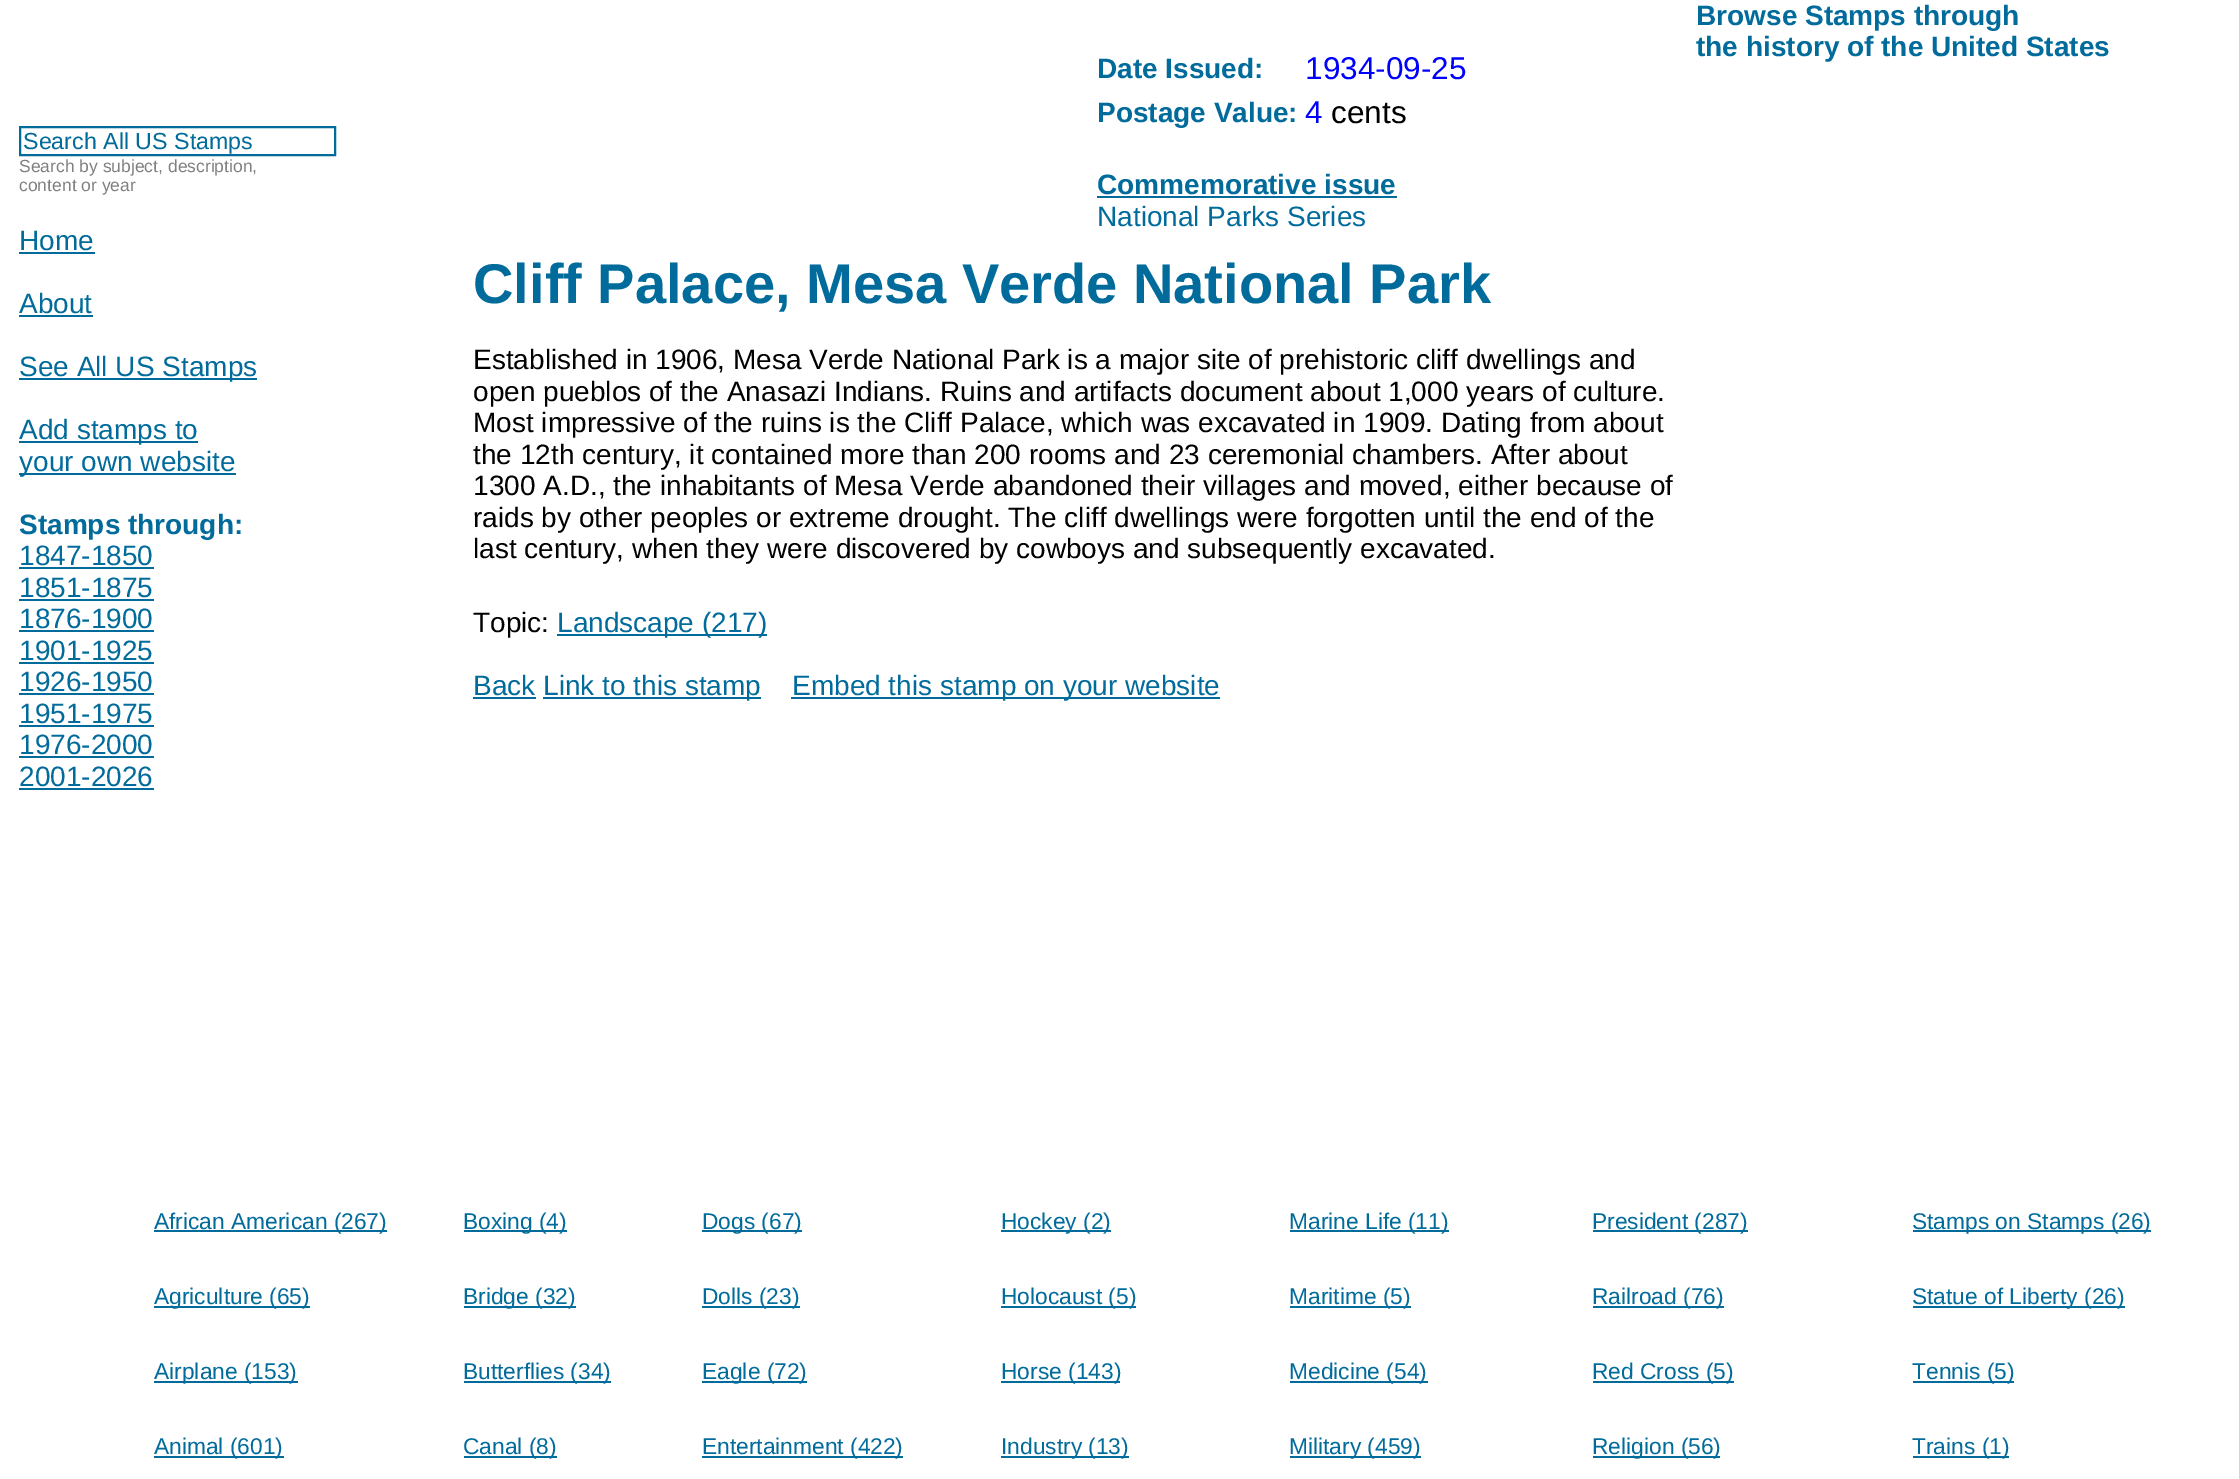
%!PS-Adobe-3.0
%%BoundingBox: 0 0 2239 1479
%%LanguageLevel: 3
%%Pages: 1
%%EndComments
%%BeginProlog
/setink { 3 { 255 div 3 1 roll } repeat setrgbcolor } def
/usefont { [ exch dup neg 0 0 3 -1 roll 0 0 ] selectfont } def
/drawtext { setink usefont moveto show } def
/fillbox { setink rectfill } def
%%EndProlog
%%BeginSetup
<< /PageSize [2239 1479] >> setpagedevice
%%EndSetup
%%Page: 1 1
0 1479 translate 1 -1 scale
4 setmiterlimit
0 0 2239 1479 255 255 255 fillbox
(Browse Stamps through) 1696 25 /LiberationSans-Bold 28 1 107 155 drawtext
(the history of the United States) 1696 56 /LiberationSans-Bold 28 1 107 155 drawtext
2 setlinewidth
20 127 315 28 rectstroke
(Search All US Stamps) 23 149 /LiberationSans-Regular 23.25 1 107 155 drawtext
(Search by subject, description,) 19 172 /LiberationSans-Regular 17.5 128 128 128 drawtext
(content or year) 19 191 /LiberationSans-Regular 17.5 128 128 128 drawtext
(Home) 19 250 /LiberationSans-Regular 28 1 107 155 drawtext
19 252 76 2 1 107 155 fillbox
(About) 19 313 /LiberationSans-Regular 28 1 107 155 drawtext
19 315 74 2 1 107 155 fillbox
19 378 238 2 1 107 155 fillbox
(See All US Stamps) 19 376 /LiberationSans-Regular 28 1 107 155 drawtext
19 441 179 2 1 107 155 fillbox
(Add stamps to) 19 439 /LiberationSans-Regular 28 1 107 155 drawtext
19 473 217 2 1 107 155 fillbox
(your own website) 19 471 /LiberationSans-Regular 28 1 107 155 drawtext
(Stamps through:) 19 534 /LiberationSans-Bold 28 1 107 155 drawtext
(1847-1850) 19 565 /LiberationSans-Regular 28 1 107 155 drawtext
19 567 135 2 1 107 155 fillbox
(1851-1875) 19 597 /LiberationSans-Regular 28 1 107 155 drawtext
19 599 135 2 1 107 155 fillbox
(1876-1900) 19 628 /LiberationSans-Regular 28 1 107 155 drawtext
19 630 135 2 1 107 155 fillbox
(1901-1925) 19 660 /LiberationSans-Regular 28 1 107 155 drawtext
19 662 135 2 1 107 155 fillbox
(1926-1950) 19 691 /LiberationSans-Regular 28 1 107 155 drawtext
19 693 135 2 1 107 155 fillbox
(1951-1975) 19 723 /LiberationSans-Regular 28 1 107 155 drawtext
19 725 135 2 1 107 155 fillbox
(1976-2000) 19 754 /LiberationSans-Regular 28 1 107 155 drawtext
19 756 135 2 1 107 155 fillbox
(2001-2026) 19 786 /LiberationSans-Regular 28 1 107 155 drawtext
19 788 135 2 1 107 155 fillbox
(Date Issued:) 1097 78 /LiberationSans-Bold 28 1 107 155 drawtext
(1934-09-25) 1305 79 /LiberationSans-Regular 31.5 0 0 255 drawtext
(Postage Value:) 1097 122 /LiberationSans-Bold 28 1 107 155 drawtext
(4) 1305 123 /LiberationSans-Regular 31.5 0 0 255 drawtext
(cents) 1331 123 /LiberationSans-Regular 31.5 0 0 0 drawtext
(Commemorative issue) 1097 194 /LiberationSans-Bold 28 1 107 155 drawtext
1097 196 300 2 1 107 155 fillbox
(National Parks Series) 1097 226 /LiberationSans-Regular 28 1 107 155 drawtext
(Cliff Palace, Mesa Verde National Park) 473 303 /LiberationSans-Bold 56 1 107 155 drawtext
(Established in 1906, Mesa Verde National Park is a major site of prehistoric cliff dwellings and) 473 369 /LiberationSans-Regular 28 0 0 0 drawtext
(open pueblos of the Anasazi Indians. Ruins and artifacts document about 1,000 years of culture.) 473 401 /LiberationSans-Regular 28 0 0 0 drawtext
(Most impressive of the ruins is the Cliff Palace, which was excavated in 1909. Dating from about) 473 432 /LiberationSans-Regular 28 0 0 0 drawtext
(the 12th century, it contained more than 200 rooms and 23 ceremonial chambers. After about) 473 464 /LiberationSans-Regular 28 0 0 0 drawtext
(1300 A.D., the inhabitants of Mesa Verde abandoned their villages and moved, either because of) 473 495 /LiberationSans-Regular 28 0 0 0 drawtext
(raids by other peoples or extreme drought. The cliff dwellings were forgotten until the end of the) 473 527 /LiberationSans-Regular 28 0 0 0 drawtext
(last century, when they were discovered by cowboys and subsequently excavated.) 473 558 /LiberationSans-Regular 28 0 0 0 drawtext
(Topic:) 473 632 /LiberationSans-Regular 28 0 0 0 drawtext
557 634 210 2 1 107 155 fillbox
(Landscape \(217\)) 557 632 /LiberationSans-Regular 28 1 107 155 drawtext
(Back) 473 695 /LiberationSans-Regular 28 1 107 155 drawtext
473 697 63 2 1 107 155 fillbox
543 697 218 2 1 107 155 fillbox
(Link to this stamp) 543 695 /LiberationSans-Regular 28 1 107 155 drawtext
791 697 429 2 1 107 155 fillbox
(Embed this stamp on your website) 792 695 /LiberationSans-Regular 28 1 107 155 drawtext
154 1230 233 2 1 107 155 fillbox
(African American \(267\)) 154 1229 /LiberationSans-Regular 22.75 1 107 155 drawtext
154 1306 156 2 1 107 155 fillbox
(Agriculture \(65\)) 154 1304 /LiberationSans-Regular 22.75 1 107 155 drawtext
154 1381 144 2 1 107 155 fillbox
(Airplane \(153\)) 154 1379 /LiberationSans-Regular 22.75 1 107 155 drawtext
154 1456 130 2 1 107 155 fillbox
(Animal \(601\)) 154 1454 /LiberationSans-Regular 22.75 1 107 155 drawtext
464 1230 103 2 1 107 155 fillbox
(Boxing \(4\)) 463 1229 /LiberationSans-Regular 22.75 1 107 155 drawtext
464 1306 112 2 1 107 155 fillbox
(Bridge \(32\)) 463 1304 /LiberationSans-Regular 22.75 1 107 155 drawtext
464 1381 147 2 1 107 155 fillbox
(Butterflies \(34\)) 463 1379 /LiberationSans-Regular 22.75 1 107 155 drawtext
464 1456 93 2 1 107 155 fillbox
(Canal \(8\)) 463 1454 /LiberationSans-Regular 22.75 1 107 155 drawtext
702 1230 100 2 1 107 155 fillbox
(Dogs \(67\)) 702 1229 /LiberationSans-Regular 22.75 1 107 155 drawtext
702 1306 98 2 1 107 155 fillbox
(Dolls \(23\)) 702 1304 /LiberationSans-Regular 22.75 1 107 155 drawtext
702 1381 105 2 1 107 155 fillbox
(Eagle \(72\)) 702 1379 /LiberationSans-Regular 22.75 1 107 155 drawtext
702 1456 201 2 1 107 155 fillbox
(Entertainment \(422\)) 702 1454 /LiberationSans-Regular 22.75 1 107 155 drawtext
1001 1230 110 2 1 107 155 fillbox
(Hockey \(2\)) 1001 1229 /LiberationSans-Regular 22.75 1 107 155 drawtext
1001 1306 135 2 1 107 155 fillbox
(Holocaust \(5\)) 1001 1304 /LiberationSans-Regular 22.75 1 107 155 drawtext
1001 1381 119 2 1 107 155 fillbox
(Horse \(143\)) 1001 1379 /LiberationSans-Regular 22.75 1 107 155 drawtext
1001 1456 128 2 1 107 155 fillbox
(Industry \(13\)) 1001 1454 /LiberationSans-Regular 22.75 1 107 155 drawtext
1290 1230 159 2 1 107 155 fillbox
(Marine Life \(11\)) 1289 1229 /LiberationSans-Regular 22.75 1 107 155 drawtext
1290 1306 121 2 1 107 155 fillbox
(Maritime \(5\)) 1289 1304 /LiberationSans-Regular 22.75 1 107 155 drawtext
1290 1381 138 2 1 107 155 fillbox
(Medicine \(54\)) 1289 1379 /LiberationSans-Regular 22.75 1 107 155 drawtext
1290 1456 131 2 1 107 155 fillbox
(Military \(459\)) 1289 1454 /LiberationSans-Regular 22.75 1 107 155 drawtext
1593 1230 155 2 1 107 155 fillbox
(President \(287\)) 1592 1229 /LiberationSans-Regular 22.75 1 107 155 drawtext
1593 1306 131 2 1 107 155 fillbox
(Railroad \(76\)) 1592 1304 /LiberationSans-Regular 22.75 1 107 155 drawtext
1593 1381 141 2 1 107 155 fillbox
(Red Cross \(5\)) 1592 1379 /LiberationSans-Regular 22.75 1 107 155 drawtext
1593 1456 127 2 1 107 155 fillbox
(Religion \(56\)) 1592 1454 /LiberationSans-Regular 22.75 1 107 155 drawtext
1913 1230 238 2 1 107 155 fillbox
(Stamps on Stamps \(26\)) 1912 1229 /LiberationSans-Regular 22.75 1 107 155 drawtext
1913 1306 212 2 1 107 155 fillbox
(Statue of Liberty \(26\)) 1912 1304 /LiberationSans-Regular 22.75 1 107 155 drawtext
1913 1381 101 2 1 107 155 fillbox
(Tennis \(5\)) 1912 1379 /LiberationSans-Regular 22.75 1 107 155 drawtext
1913 1456 96 2 1 107 155 fillbox
(Trains \(1\)) 1912 1454 /LiberationSans-Regular 22.75 1 107 155 drawtext
showpage
%%EOF
